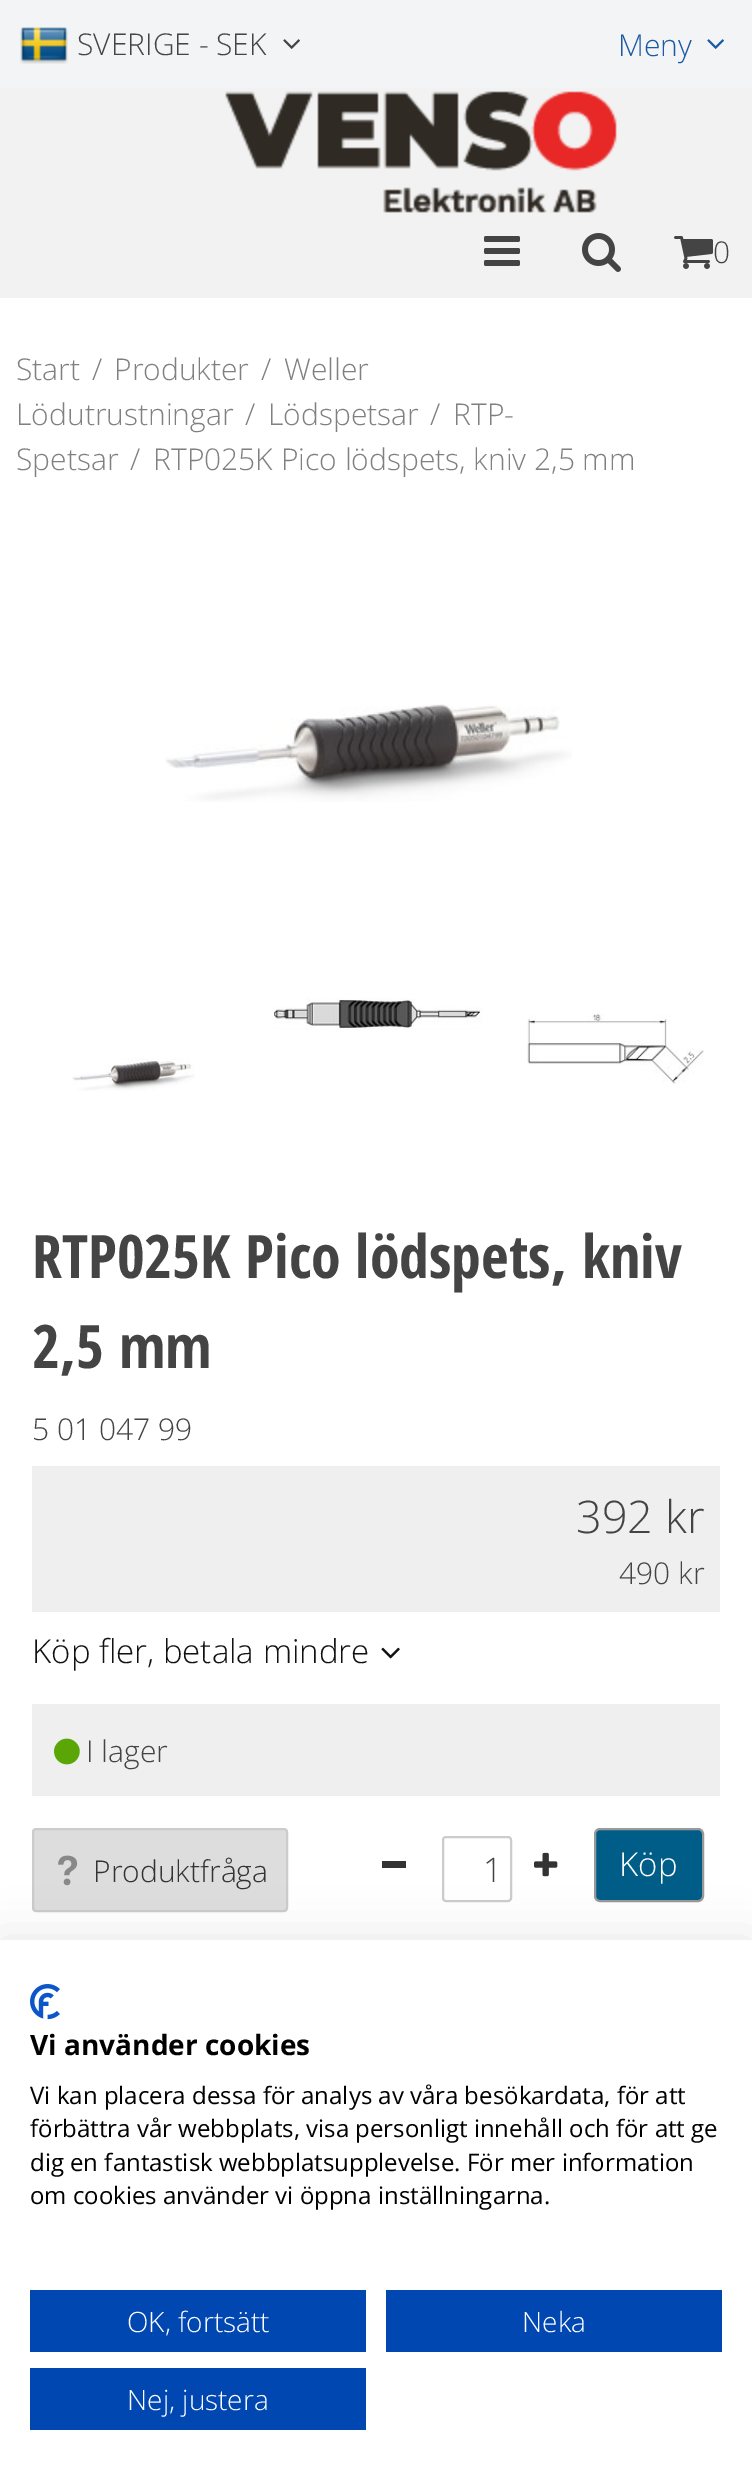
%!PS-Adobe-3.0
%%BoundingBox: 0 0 752 2483
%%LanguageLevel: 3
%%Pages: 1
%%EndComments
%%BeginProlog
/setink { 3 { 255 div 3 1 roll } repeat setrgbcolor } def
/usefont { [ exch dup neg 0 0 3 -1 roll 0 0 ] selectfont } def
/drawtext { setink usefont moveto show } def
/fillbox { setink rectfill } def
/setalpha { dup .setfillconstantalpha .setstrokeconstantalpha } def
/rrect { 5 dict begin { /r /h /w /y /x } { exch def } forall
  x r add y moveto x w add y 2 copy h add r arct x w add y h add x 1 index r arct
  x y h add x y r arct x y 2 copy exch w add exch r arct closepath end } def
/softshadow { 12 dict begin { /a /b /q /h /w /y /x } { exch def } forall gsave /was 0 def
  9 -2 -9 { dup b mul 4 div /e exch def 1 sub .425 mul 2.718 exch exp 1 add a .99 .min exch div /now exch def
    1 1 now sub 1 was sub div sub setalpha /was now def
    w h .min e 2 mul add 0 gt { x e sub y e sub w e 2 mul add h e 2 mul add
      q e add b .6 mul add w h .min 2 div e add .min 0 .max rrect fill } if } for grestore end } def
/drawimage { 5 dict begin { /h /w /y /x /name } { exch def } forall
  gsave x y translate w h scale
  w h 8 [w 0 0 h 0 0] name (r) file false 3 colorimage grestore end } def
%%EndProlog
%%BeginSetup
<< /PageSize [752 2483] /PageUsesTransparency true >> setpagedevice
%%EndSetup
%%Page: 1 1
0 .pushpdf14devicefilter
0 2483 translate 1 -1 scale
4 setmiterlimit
0 0 752 2483 255 255 255 fillbox
0 88 752 210 242 242 242 fillbox
0 0 752 88 243 244 245 fillbox
(assets/img1.rgb) 20 27 48 37 drawimage
(SVERIGE - SEK) 77 55 /OpenSans-Light 30 68 68 68 drawtext
(assets/img2.rgb) 283 39 17 10 drawimage
(Meny) 618 56 /OpenSans-Light 30 27 89 164 drawtext
(assets/img3.rgb) 707 39 17 10 drawimage
(assets/img4.rgb) 225 91 392 122 drawimage
(assets/img5.rgb) 484 236 36 30 drawimage
(assets/img6.rgb) 582 233 39 39 drawimage
(assets/img7.rgb) 674 236 39 33 drawimage
(0) 713 263 /OpenSans-Light 30 68 68 68 drawtext
(Start) 16 380 /OpenSans-Light 30 128 128 128 drawtext
(/) 92 380 /OpenSans-Light 30 128 128 128 drawtext
(Produkter) 114 380 /OpenSans-Light 30 128 128 128 drawtext
(/) 261 380 /OpenSans-Light 30 128 128 128 drawtext
(Weller) 284 380 /OpenSans-Light 30 128 128 128 drawtext
(Lödutrustningar) 16 425 /OpenSans-Light 30 128 128 128 drawtext
(/) 245 425 /OpenSans-Light 30 128 128 128 drawtext
(Lödspetsar) 268 425 /OpenSans-Light 30 128 128 128 drawtext
(/) 430 425 /OpenSans-Light 30 128 128 128 drawtext
(RTP-) 453 425 /OpenSans-Light 30 128 128 128 drawtext
(Spetsar) 16 470 /OpenSans-Light 30 128 128 128 drawtext
(/) 130 470 /OpenSans-Light 30 128 128 128 drawtext
(RTP025K Pico lödspets, kniv 2,5 mm) 153 470 /OpenSans-Light 30 128 128 128 drawtext
(assets/img8.rgb) 165 704 407 98 drawimage
(assets/img9.rgb) 72 1058 123 33 drawimage
(assets/img10.rgb) 273 998 209 32 drawimage
(assets/img11.rgb) 527 1013 177 71 drawimage
(RTP025K Pico lödspets, kniv) 32 1278 /OpenSansCondensed-Bold 60 68 68 68 drawtext
(2,5 mm) 32 1368 /OpenSansCondensed-Bold 60 68 68 68 drawtext
(5 01 047 99) 32 1440 /OpenSans-Light 30 68 68 68 drawtext
32 1466 688 146 239 239 239 fillbox
(392 kr) 576 1533 /OpenSans-Light 45 68 68 68 drawtext
(490 kr) 619 1584 /OpenSans-Light 30 68 68 68 drawtext
(Köp fler, betala mindre) 32 1663 /OpenSans-Light 33 17 17 17 drawtext
(assets/img12.rgb) 381 1647 19 12 drawimage
32 1704 688 92 239 239 239 fillbox
(assets/img13.rgb) 54 1738 26 27 drawimage
(I lager) 86 1762 /OpenSans-Light 30 68 68 68 drawtext
221 221 221 setink
33 1829 254 82 3 rrect gsave fill grestore
204 204 204 setink
2 setlinewidth
stroke
(assets/img14.rgb) 58 1855 20 31 drawimage
(Produktfråga) 93 1882 /OpenSans-Light 30 51 51 51 drawtext
382 1861 24 7 51 51 51 fillbox
204 204 204 setink
443 1837 68 64 3 rrect stroke
(1) 483 1882 /OpenSans-Light 34 68 68 68 drawtext
(assets/img15.rgb) 534 1852 24 25 drawimage
0 93 136 setink
595 1829 108 72 5 rrect gsave fill grestore
153 153 153 setink
stroke
(Köp) 619 1876 /OpenSans-Light 33 255 255 255 drawtext
0 0 0 setink
0 1940 752 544 0 24 0.1 softshadow
0 1940 752 543 255 255 255 fillbox
(assets/img16.rgb) 30 1984 30 36 drawimage
(Vi använder cookies) 30 2055 /OpenSans-Bold 28 0 0 0 drawtext
(Vi kan placera dessa för analys av våra besökardata, för att) 30 2104 /OpenSans-Regular 24 0 0 0 drawtext
(förbättra vår webbplats, visa personligt innehåll och för att ge) 30 2137 /OpenSans-Regular 24 0 0 0 drawtext
(dig en fantastisk webbplatsupplevelse. För mer information) 30 2171 /OpenSans-Regular 24 0 0 0 drawtext
(om cookies använder vi öppna inställningarna.) 30 2204 /OpenSans-Regular 24 0 0 0 drawtext
30 2290 336 62 0 71 178 fillbox
(OK, fortsätt) 127 2332 /OpenSans-Light 28 255 255 255 drawtext
386 2290 336 62 0 71 178 fillbox
(Neka) 522 2332 /OpenSans-Light 28 255 255 255 drawtext
30 2368 336 62 0 71 178 fillbox
(Nej, justera) 127 2410 /OpenSans-Light 28 255 255 255 drawtext
.poppdf14devicefilter showpage
%%EOF
